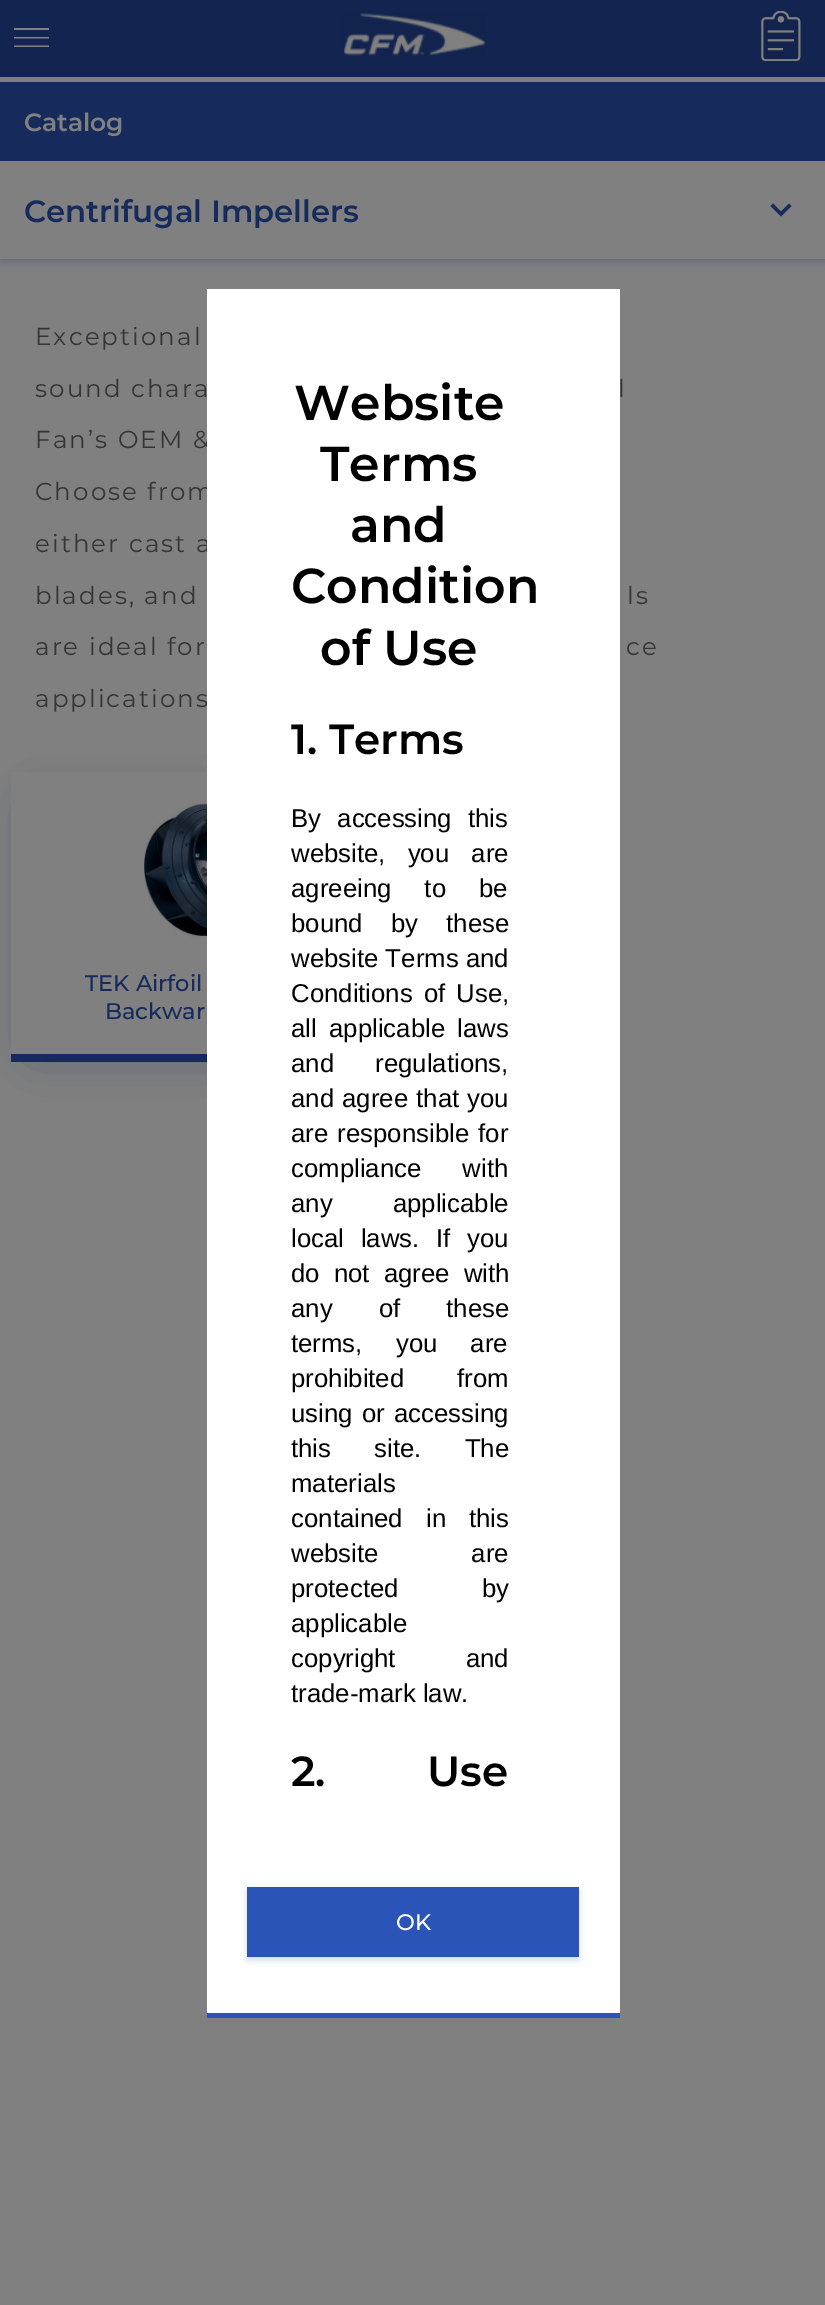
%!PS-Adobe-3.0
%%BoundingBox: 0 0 825 2305
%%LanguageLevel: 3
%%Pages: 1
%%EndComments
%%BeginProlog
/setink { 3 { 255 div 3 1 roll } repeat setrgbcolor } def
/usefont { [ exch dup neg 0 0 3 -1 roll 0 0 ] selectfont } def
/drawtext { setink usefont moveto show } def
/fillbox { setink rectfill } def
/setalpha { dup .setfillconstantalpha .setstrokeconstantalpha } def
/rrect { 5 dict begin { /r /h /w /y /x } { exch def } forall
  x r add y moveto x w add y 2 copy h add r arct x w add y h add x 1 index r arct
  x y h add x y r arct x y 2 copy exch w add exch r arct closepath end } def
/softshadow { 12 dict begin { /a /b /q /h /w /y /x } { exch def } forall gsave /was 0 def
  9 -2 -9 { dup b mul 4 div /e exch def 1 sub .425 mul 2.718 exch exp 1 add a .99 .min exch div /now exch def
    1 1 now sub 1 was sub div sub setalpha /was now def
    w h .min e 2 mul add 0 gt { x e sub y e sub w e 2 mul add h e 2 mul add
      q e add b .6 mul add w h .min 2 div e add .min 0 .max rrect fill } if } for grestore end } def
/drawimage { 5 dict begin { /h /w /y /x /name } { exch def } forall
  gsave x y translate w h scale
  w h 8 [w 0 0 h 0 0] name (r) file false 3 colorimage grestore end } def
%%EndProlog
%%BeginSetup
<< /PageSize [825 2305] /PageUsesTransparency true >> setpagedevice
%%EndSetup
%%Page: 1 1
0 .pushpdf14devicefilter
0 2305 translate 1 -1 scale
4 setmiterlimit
0 0 825 2305 128 128 128 fillbox
0 0 825 77 18 36 79 fillbox
128 128 128 setink
14 28 moveto 49 28 lineto 49 30 lineto 14 30 lineto closepath 14 37 moveto 49 37 lineto 49 38.5 lineto 14 38.5 lineto closepath 14 45.5 moveto 49 45.5 lineto 49 47 lineto 14 47 lineto closepath eofill
(assets/img1.rgb) 343 13 143 43 drawimage
(assets/img2.rgb) 761 11 40 50 drawimage
0 82 825 79 22 42 92 fillbox
(Catalog) 24 131 /Montserrat-SemiBold 25 128 128 128 drawtext
22 42 92 setink
0 161 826 98 0 6 0.41 softshadow
0 161 825 98 128 128 128 fillbox
(Centrifugal Impellers) 24 222 /Montserrat-SemiBold 30.75 22 42 92 drawtext
773 203.5 moveto 781 211.5 lineto 789 203.5 lineto 791.5 206 lineto 781 216.5 lineto 770.5 206 lineto closepath fill
/Montserrat-Regular 24.5 usefont
53 53 55 setink
35 345 moveto 2.1 0 (Exceptional) ashow
35 397 moveto 2.1 0 (sound chara) ashow
618 397 moveto 2.1 0 (l) ashow
35 448 moveto 2.1 0 (Fan’s OEM &) ashow
35 500 moveto 2.1 0 (Choose from) ashow
35 552 moveto 2.1 0 (either cast a) ashow
35 604 moveto 2.1 0 (blades, and) ashow
627 604 moveto 2.1 0 (ls) ashow
35 655 moveto 2.1 0 (are ideal for) ashow
626 655 moveto 2.1 0 (ce) ashow
35 707 moveto 2.1 0 (applications) ashow
22 42 92 setink
37 807 339 238 0 23.5 0.65 softshadow
11 772 196 282 128 128 128 fillbox
11 1054 196 8 22 42 92 fillbox
(assets/img3.rgb) 144 800 63 139 drawimage
(TEK Airfoil) 85 991 /Montserrat-Medium 22.5 22 42 92 drawtext
(Backwar) 105 1019 /Montserrat-Medium 22.5 22 42 92 drawtext
207 289 413 1724 255 255 255 fillbox
207 2013 413 5 43 84 184 fillbox
(Website) 294 420 /Montserrat-SemiBold 49 0 0 0 drawtext
(Terms) 320 481 /Montserrat-SemiBold 49 0 0 0 drawtext
(and) 350 542 /Montserrat-SemiBold 49 0 0 0 drawtext
(Condition) 291 603 /Montserrat-SemiBold 49 0 0 0 drawtext
(of Use) 320 665 /Montserrat-SemiBold 49 0 0 0 drawtext
gsave
291 373 245 1458 rectclip
(1. Terms) 291 754 /Montserrat-SemiBold 42 0 0 0 drawtext
grestore
/LiberationSans-Regular 25.75 usefont
291 827 moveto 9 0 32 (By accessing this) widthshow
291 862 moveto 15 0 32 (website, you are) widthshow
291 897 moveto 26 0 32 (agreeing to be) widthshow
291 932 moveto 21 0 32 (bound by these) widthshow
(website Terms and) 291 967 /LiberationSans-Regular 25.75 0 0 0 drawtext
291 1002 moveto 4 0 32 (Conditions of Use,) widthshow
291 1037 moveto 5 0 32 (all applicable laws) widthshow
291 1072 moveto 34 0 32 (and regulations,) widthshow
291 1107 moveto 1 0 32 (and agree that you) widthshow
291 1142 moveto 2 0 32 (are responsible for) widthshow
291 1177 moveto 34 0 32 (compliance with) widthshow
291 1212 moveto 53 0 32 (any applicable) widthshow
291 1247 moveto 9.5 0 32 (local laws. If you) widthshow
291 1282 moveto 7 0 32 (do not agree with) widthshow
291 1317 moveto 39 0 32 (any of these) widthshow
291 1352 moveto 26 0 32 (terms, you are) widthshow
291 1387 moveto 46 0 32 (prohibited from) widthshow
291 1422 moveto 2 0 32 (using or accessing) widthshow
291 1457 moveto 36 0 32 (this site. The) widthshow
(materials) 291 1492 /LiberationSans-Regular 25.75 0 0 0 drawtext
291 1527 moveto 16 0 32 (contained in this) widthshow
291 1562 moveto 86 0 32 (website are) widthshow
291 1597 moveto 76 0 32 (protected by) widthshow
(applicable) 291 1632 /LiberationSans-Regular 25.75 0 0 0 drawtext
291 1667 moveto 63 0 32 (copyright and) widthshow
(trade-mark law.) 291 1702 /LiberationSans-Regular 25.75 0 0 0 drawtext
/Montserrat-SemiBold 42 usefont
291 1786 moveto 90 0 32 (2. Use) widthshow
204 219 232 setink
247 1890 332 70 0 3.5 1 softshadow
247 1887 332 70 43 84 184 fillbox
(OK) 396 1930 /Montserrat-Medium 22.5 255 255 255 drawtext
.poppdf14devicefilter showpage
%%EOF
